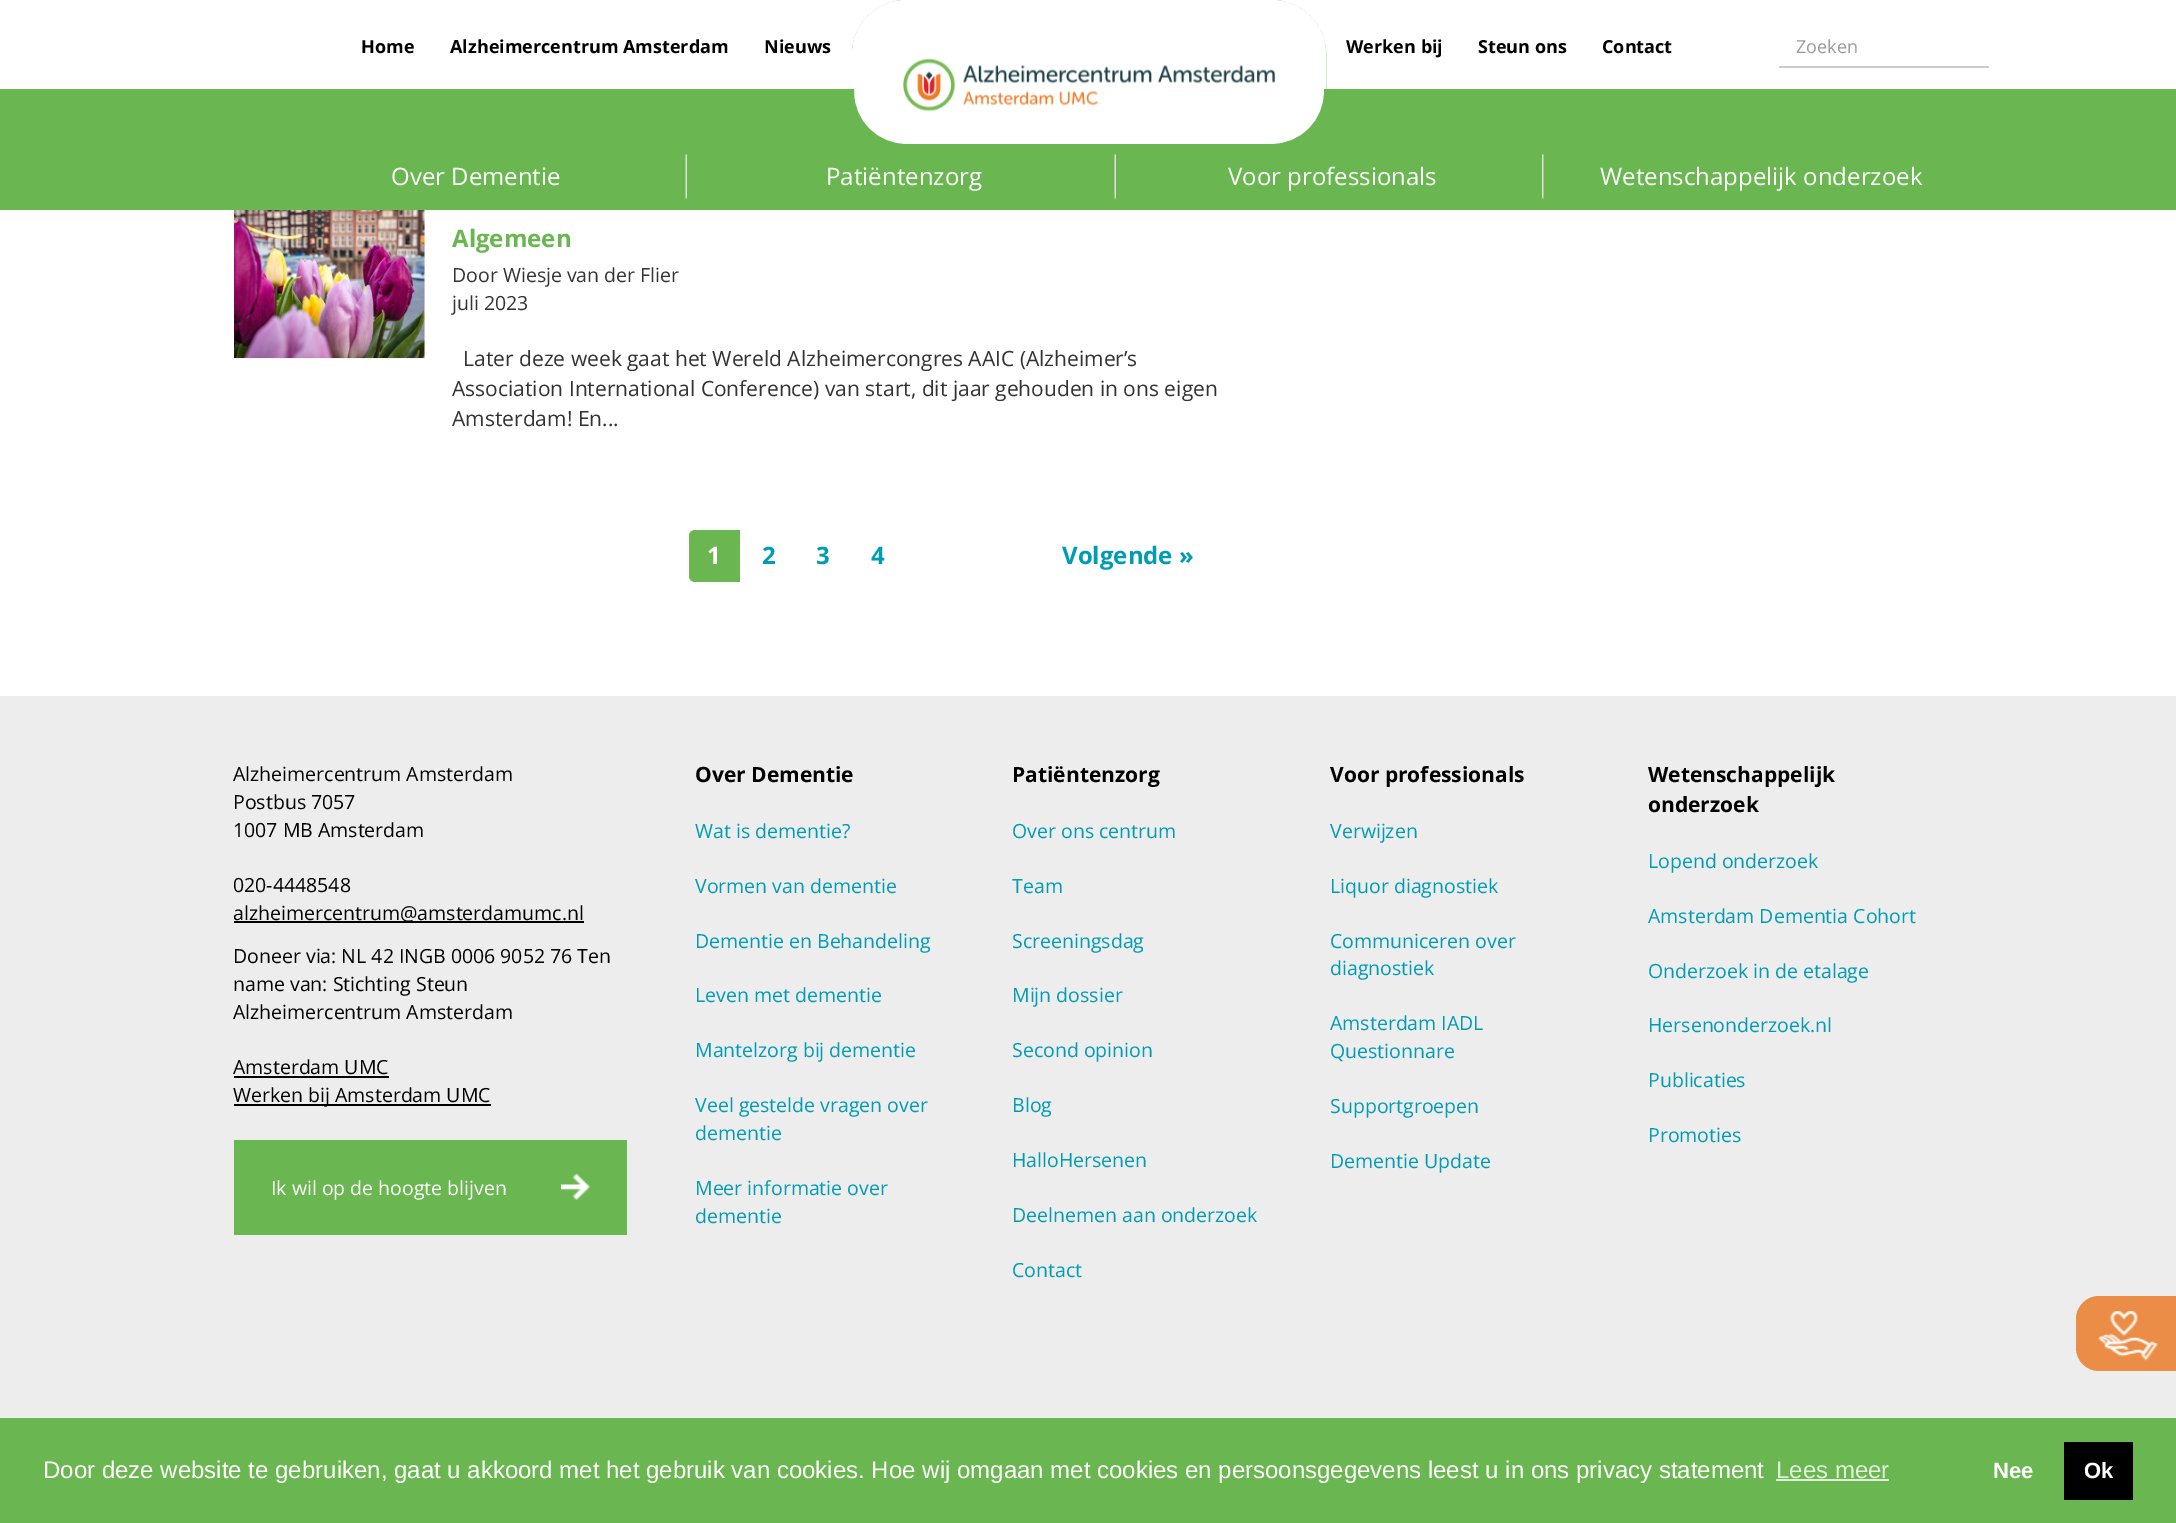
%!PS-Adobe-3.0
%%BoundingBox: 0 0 2176 1523
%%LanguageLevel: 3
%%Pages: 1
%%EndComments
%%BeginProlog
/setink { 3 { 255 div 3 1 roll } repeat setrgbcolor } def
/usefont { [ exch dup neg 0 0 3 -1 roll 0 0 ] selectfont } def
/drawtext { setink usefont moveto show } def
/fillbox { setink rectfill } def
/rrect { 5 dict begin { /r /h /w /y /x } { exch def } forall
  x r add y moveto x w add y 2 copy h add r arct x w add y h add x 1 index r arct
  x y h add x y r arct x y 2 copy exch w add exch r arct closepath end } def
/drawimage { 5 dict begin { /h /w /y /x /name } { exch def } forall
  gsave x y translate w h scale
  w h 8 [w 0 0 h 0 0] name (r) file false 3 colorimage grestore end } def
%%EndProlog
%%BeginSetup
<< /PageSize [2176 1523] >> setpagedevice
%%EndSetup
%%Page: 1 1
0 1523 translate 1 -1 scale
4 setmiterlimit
0 0 2176 1523 255 255 255 fillbox
(Home) 361 53 /OpenSans-Bold 18 0 0 0 drawtext
(Alzheimercentrum Amsterdam) 450 53 /OpenSans-Bold 18 0 0 0 drawtext
(Nieuws) 764 53 /OpenSans-Bold 18 0 0 0 drawtext
0 89 2176 121 106 182 80 fillbox
255 255 255 setink
853 1 472 144 53 rrect gsave fill grestore
106 182 80 setink
2 setlinewidth
stroke
255 255 255 setink
906 0 moveto 1272 0 lineto 1302 0 1326 24 1326 54 curveto 1326 89 lineto 852 89 lineto 852 54 lineto 852 24 876 0 906 0 curveto closepath fill
(assets/img1.rgb) 903 58 372 54 drawimage
(Werken bij) 1346 53 /OpenSans-Bold 18 0 0 0 drawtext
(Steun ons) 1478 53 /OpenSans-Bold 18 0 0 0 drawtext
(Contact) 1602 53 /OpenSans-Bold 18 0 0 0 drawtext
1779 66 210 2 204 204 204 fillbox
(Zoeken) 1796 53 /OpenSans-Regular 18 153 153 153 drawtext
(assets/img2.rgb) 685 154 2 45 drawimage
(Over Dementie) 391 185 /OpenSans-Regular 24 255 255 255 drawtext
(assets/img2.rgb) 1114 154 2 45 drawimage
(Patiëntenzorg) 826 185 /OpenSans-Regular 24 255 255 255 drawtext
(assets/img3.rgb) 1542 154 2 45 drawimage
(Voor professionals) 1228 185 /OpenSans-Regular 24 255 255 255 drawtext
(Wetenschappelijk onderzoek) 1600 185 /OpenSans-Regular 24 255 255 255 drawtext
234 210 191 149 245 245 245 fillbox
(assets/img4.rgb) 234 210 191 148 drawimage
(Algemeen) 452 247 /OpenSans-Bold 24 106 182 80 drawtext
(Door Wiesje van der Flier) 452 282 /OpenSans-Regular 19.5 51 51 51 drawtext
(juli 2023) 452 310 /OpenSans-Regular 19.5 51 51 51 drawtext
(Later deze week gaat het Wereld Alzheimercongres AAIC \(Alzheimer’s) 463 366 /OpenSans-Regular 21 51 51 51 drawtext
(Association International Conference\) van start, dit jaar gehouden in ons eigen) 452 396 /OpenSans-Regular 21 51 51 51 drawtext
(Amsterdam! En...) 452 426 /OpenSans-Regular 21 51 51 51 drawtext
106 182 80 setink
695 530 moveto 740 530 lineto 740 582 lineto 695 582 lineto 691.5 582 689 579.5 689 576 curveto 689 536 lineto 689 532.5 691.5 530 695 530 curveto closepath fill
(1) 707 564 /OpenSans-Bold 24 255 255 255 drawtext
(2) 762 564 /OpenSans-Bold 24 0 156 180 drawtext
(3) 816 564 /OpenSans-Bold 24 0 156 180 drawtext
(4) 871 564 /OpenSans-Bold 24 0 156 180 drawtext
(Volgende ») 1062 564 /OpenSans-Bold 24 0 156 180 drawtext
0 696 2176 722 237 237 237 fillbox
(Alzheimercentrum Amsterdam) 233 781 /OpenSans-Regular 19.5 0 0 0 drawtext
(Postbus 7057) 233 809 /OpenSans-Regular 19.5 0 0 0 drawtext
(1007 MB Amsterdam) 233 837 /OpenSans-Regular 19.5 0 0 0 drawtext
(020-4448548) 233 892 /OpenSans-Regular 19.5 0 0 0 drawtext
234 921 350 2 0 0 0 fillbox
(alzheimercentrum@amsterdamumc.nl) 233 920 /OpenSans-Regular 19.5 0 0 0 drawtext
(Doneer via: NL 42 INGB 0006 9052 76 Ten) 233 963 /OpenSans-Regular 19.5 0 0 0 drawtext
(name van: Stichting Steun) 233 991 /OpenSans-Regular 19.5 0 0 0 drawtext
(Alzheimercentrum Amsterdam) 233 1019 /OpenSans-Regular 19.5 0 0 0 drawtext
(Amsterdam UMC) 233 1074 /OpenSans-Regular 19.5 0 0 0 drawtext
234 1076 155 2 0 0 0 fillbox
234 1104 257 2 0 0 0 fillbox
(Werken bij Amsterdam UMC) 233 1102 /OpenSans-Regular 19.5 0 0 0 drawtext
234 1140 393 95 106 182 80 fillbox
(Ik wil op de hoogte blijven) 271 1195 /OpenSans-Regular 19.5 255 255 255 drawtext
(assets/img5.rgb) 561 1174 29 26 drawimage
(Over Dementie) 695 782 /OpenSans-Bold 21 0 0 0 drawtext
(Wat is dementie?) 695 838 /OpenSans-Regular 19.5 0 156 180 drawtext
(Vormen van dementie) 695 893 /OpenSans-Regular 19.5 0 156 180 drawtext
(Dementie en Behandeling) 695 948 /OpenSans-Regular 19.5 0 156 180 drawtext
(Leven met dementie) 695 1002 /OpenSans-Regular 19.5 0 156 180 drawtext
(Mantelzorg bij dementie) 695 1057 /OpenSans-Regular 19.5 0 156 180 drawtext
(Veel gestelde vragen over) 695 1112 /OpenSans-Regular 19.5 0 156 180 drawtext
(dementie) 695 1140 /OpenSans-Regular 19.5 0 156 180 drawtext
(Meer informatie over) 695 1195 /OpenSans-Regular 19.5 0 156 180 drawtext
(dementie) 695 1223 /OpenSans-Regular 19.5 0 156 180 drawtext
(Patiëntenzorg) 1012 782 /OpenSans-Bold 21 0 0 0 drawtext
(Over ons centrum) 1012 838 /OpenSans-Regular 19.5 0 156 180 drawtext
(Team) 1012 893 /OpenSans-Regular 19.5 0 156 180 drawtext
(Screeningsdag) 1012 948 /OpenSans-Regular 19.5 0 156 180 drawtext
(Mijn dossier) 1012 1002 /OpenSans-Regular 19.5 0 156 180 drawtext
(Second opinion) 1012 1057 /OpenSans-Regular 19.5 0 156 180 drawtext
(Blog) 1012 1112 /OpenSans-Regular 19.5 0 156 180 drawtext
(HalloHersenen) 1012 1167 /OpenSans-Regular 19.5 0 156 180 drawtext
(Deelnemen aan onderzoek) 1012 1222 /OpenSans-Regular 19.5 0 156 180 drawtext
(Contact) 1012 1277 /OpenSans-Regular 19.5 0 156 180 drawtext
(Voor professionals) 1330 782 /OpenSans-Bold 21 0 0 0 drawtext
(Verwijzen) 1330 838 /OpenSans-Regular 19.5 0 156 180 drawtext
(Liquor diagnostiek) 1330 893 /OpenSans-Regular 19.5 0 156 180 drawtext
(Communiceren over) 1330 948 /OpenSans-Regular 19.5 0 156 180 drawtext
(diagnostiek) 1330 975 /OpenSans-Regular 19.5 0 156 180 drawtext
(Amsterdam IADL) 1330 1030 /OpenSans-Regular 19.5 0 156 180 drawtext
(Questionnare) 1330 1058 /OpenSans-Regular 19.5 0 156 180 drawtext
(Supportgroepen) 1330 1113 /OpenSans-Regular 19.5 0 156 180 drawtext
(Dementie Update) 1330 1168 /OpenSans-Regular 19.5 0 156 180 drawtext
(Wetenschappelijk) 1648 782 /OpenSans-Bold 21 0 0 0 drawtext
(onderzoek) 1648 812 /OpenSans-Bold 21 0 0 0 drawtext
(Lopend onderzoek) 1648 868 /OpenSans-Regular 19.5 0 156 180 drawtext
(Amsterdam Dementia Cohort) 1648 923 /OpenSans-Regular 19.5 0 156 180 drawtext
(Onderzoek in de etalage) 1648 978 /OpenSans-Regular 19.5 0 156 180 drawtext
(Hersenonderzoek.nl) 1648 1032 /OpenSans-Regular 19.5 0 156 180 drawtext
(Publicaties) 1648 1087 /OpenSans-Regular 19.5 0 156 180 drawtext
(Promoties) 1648 1142 /OpenSans-Regular 19.5 0 156 180 drawtext
235 141 70 setink
2099 1296 moveto 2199 1296 lineto 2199 1371 lineto 2099 1371 lineto 2086.5 1371 2076 1360.5 2076 1348 curveto 2076 1319 lineto 2076 1306.5 2086.5 1296 2099 1296 curveto closepath fill
(assets/img6.rgb) 2098 1311 60 50 drawimage
0 1418 2176 105 106 182 80 fillbox
(Door deze website te gebruiken, gaat u akkoord met het gebruik van cookies. Hoe wij omgaan met cookies en persoonsgegevens leest u in ons privacy statement) 43 1478 /LiberationSans-Regular 24 255 255 255 drawtext
(Lees meer) 1776 1478 /LiberationSans-Regular 24 225 240 220 drawtext
1776 1479 113 2 225 240 220 fillbox
(Nee) 1993 1478 /LiberationSans-Bold 22 255 255 255 drawtext
2064 1442 69 58 0 0 0 fillbox
(Ok) 2084 1478 /LiberationSans-Bold 22 255 255 255 drawtext
showpage
%%EOF
